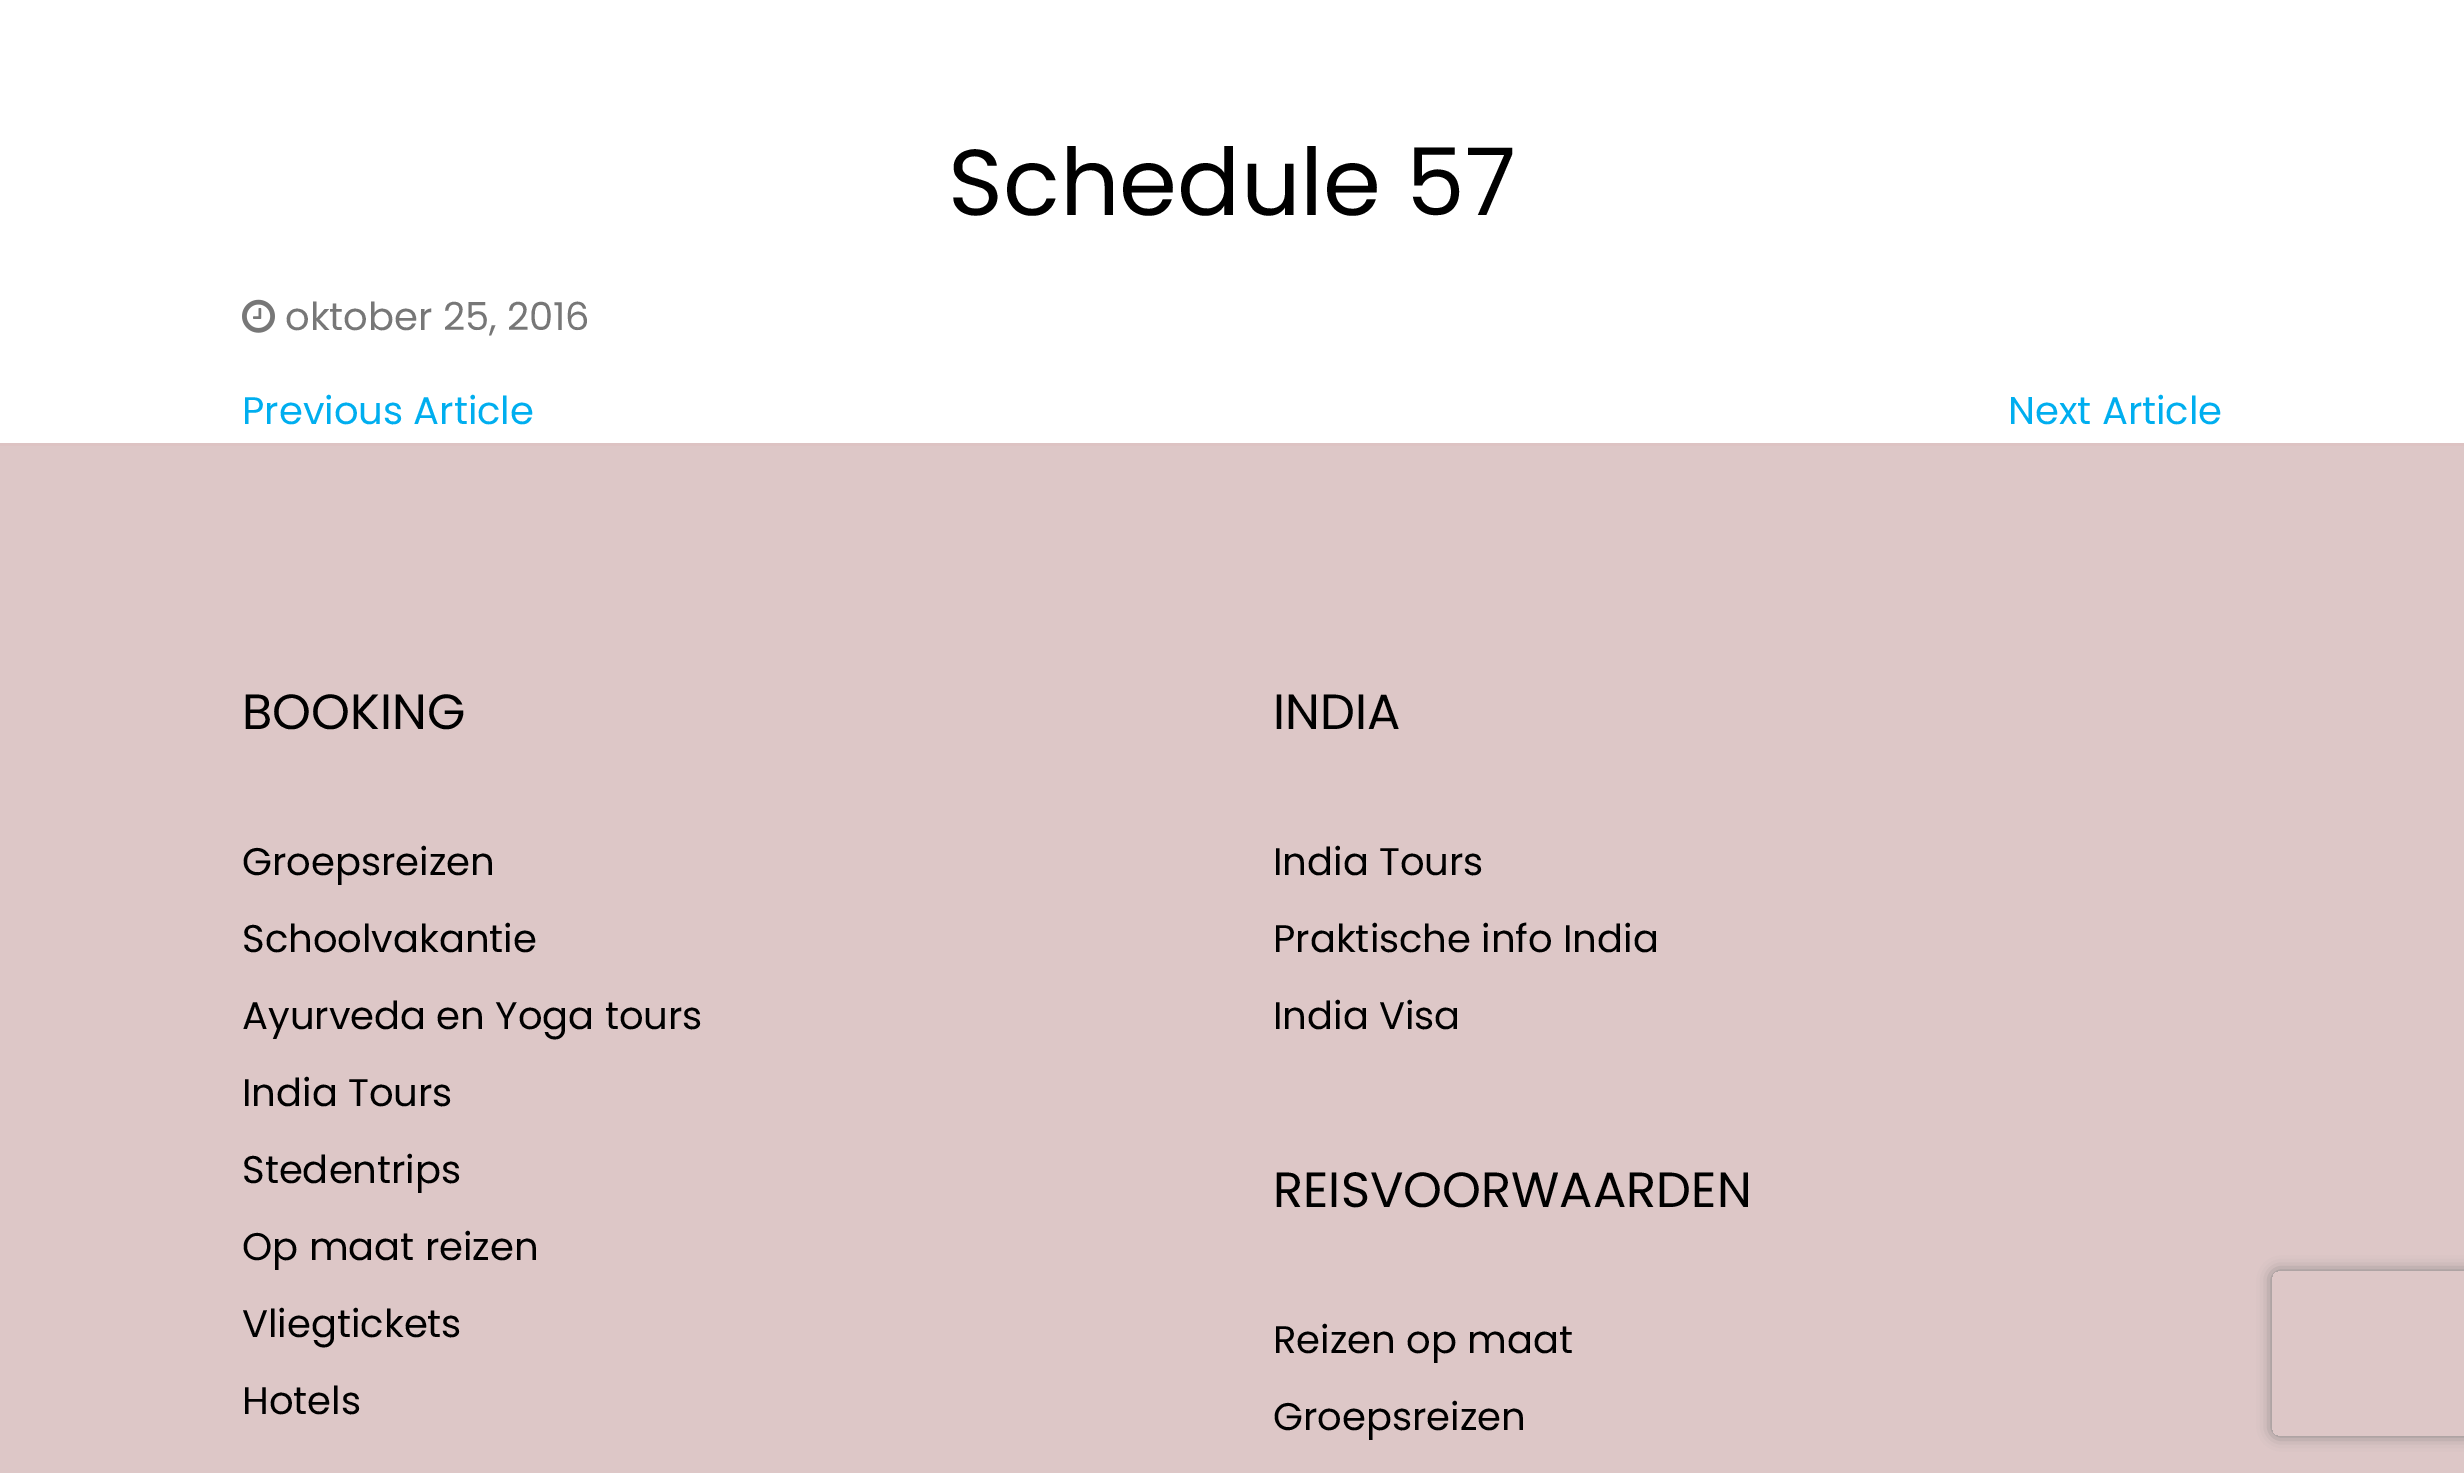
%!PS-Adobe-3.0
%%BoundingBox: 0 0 2464 1473
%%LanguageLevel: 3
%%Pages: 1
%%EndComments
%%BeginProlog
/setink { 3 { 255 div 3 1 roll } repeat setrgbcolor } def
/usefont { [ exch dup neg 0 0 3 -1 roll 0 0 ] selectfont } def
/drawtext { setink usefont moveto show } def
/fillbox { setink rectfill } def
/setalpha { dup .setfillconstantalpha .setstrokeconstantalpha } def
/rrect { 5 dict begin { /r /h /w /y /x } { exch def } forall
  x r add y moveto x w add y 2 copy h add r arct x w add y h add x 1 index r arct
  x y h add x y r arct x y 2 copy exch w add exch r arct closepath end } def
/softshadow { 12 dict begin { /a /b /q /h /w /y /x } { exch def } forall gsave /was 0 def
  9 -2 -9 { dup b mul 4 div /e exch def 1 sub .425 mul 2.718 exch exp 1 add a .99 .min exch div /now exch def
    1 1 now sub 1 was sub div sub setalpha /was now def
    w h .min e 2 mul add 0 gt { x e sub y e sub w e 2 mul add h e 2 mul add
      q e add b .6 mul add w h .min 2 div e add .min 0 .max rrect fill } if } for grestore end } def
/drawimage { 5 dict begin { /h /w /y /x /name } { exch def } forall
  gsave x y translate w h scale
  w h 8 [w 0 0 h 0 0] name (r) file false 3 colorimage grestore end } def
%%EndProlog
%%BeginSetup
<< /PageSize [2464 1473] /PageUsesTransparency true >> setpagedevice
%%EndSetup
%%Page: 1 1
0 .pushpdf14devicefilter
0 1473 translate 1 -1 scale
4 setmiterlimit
0 0 2464 1473 255 255 255 fillbox
(Schedule 57) 948 215 /Poppins-Regular 93.5 0 0 0 drawtext
(assets/img1.rgb) 242 299 33 34 drawimage
(oktober 25, 2016) 285 330 /Poppins-Regular 38.5 119 119 119 drawtext
(Previous Article) 242 424 /Poppins-Regular 38.5 0 174 239 drawtext
(Next Article) 2008 424 /Poppins-Regular 38.5 0 174 239 drawtext
0 446 2464 1027 221 199 199 fillbox
0 443 2464 3 221 195 195 fillbox
(BOOKING) 242 729 /Poppins-Regular 49.5 0 0 0 drawtext
(Groepsreizen) 242 875 /Poppins-Regular 38.5 0 0 0 drawtext
(Schoolvakantie) 242 952 /Poppins-Regular 38.5 0 0 0 drawtext
(Ayurveda en Yoga tours) 242 1029 /Poppins-Regular 38.5 0 0 0 drawtext
(India Tours) 242 1106 /Poppins-Regular 38.5 0 0 0 drawtext
(Stedentrips) 242 1183 /Poppins-Regular 38.5 0 0 0 drawtext
(Op maat reizen) 242 1260 /Poppins-Regular 38.5 0 0 0 drawtext
(Vliegtickets) 242 1337 /Poppins-Regular 38.5 0 0 0 drawtext
(Hotels) 242 1414 /Poppins-Regular 38.5 0 0 0 drawtext
(INDIA) 1273 729 /Poppins-Regular 49.5 0 0 0 drawtext
(India Tours) 1273 875 /Poppins-Regular 38.5 0 0 0 drawtext
(Praktische info India) 1273 952 /Poppins-Regular 38.5 0 0 0 drawtext
(India Visa) 1273 1029 /Poppins-Regular 38.5 0 0 0 drawtext
(REISVOORWAARDEN) 1273 1207 /Poppins-Regular 49.5 0 0 0 drawtext
(Reizen op maat) 1273 1353 /Poppins-Regular 38.5 0 0 0 drawtext
(Groepsreizen) 1273 1430 /Poppins-Regular 38.5 0 0 0 drawtext
gsave
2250 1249 moveto 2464 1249 lineto 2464 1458 lineto 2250 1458 lineto closepath 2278 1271 moveto 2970 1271 lineto 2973.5 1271 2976 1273.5 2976 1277 curveto 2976 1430 lineto 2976 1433.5 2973.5 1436 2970 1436 curveto 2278 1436 lineto 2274.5 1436 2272 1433.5 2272 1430 curveto 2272 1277 lineto 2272 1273.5 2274.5 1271 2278 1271 curveto closepath eoclip newpath
128 128 128 setink
2272 1271 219 165 6 7 1 softshadow
grestore
.poppdf14devicefilter showpage
%%EOF
